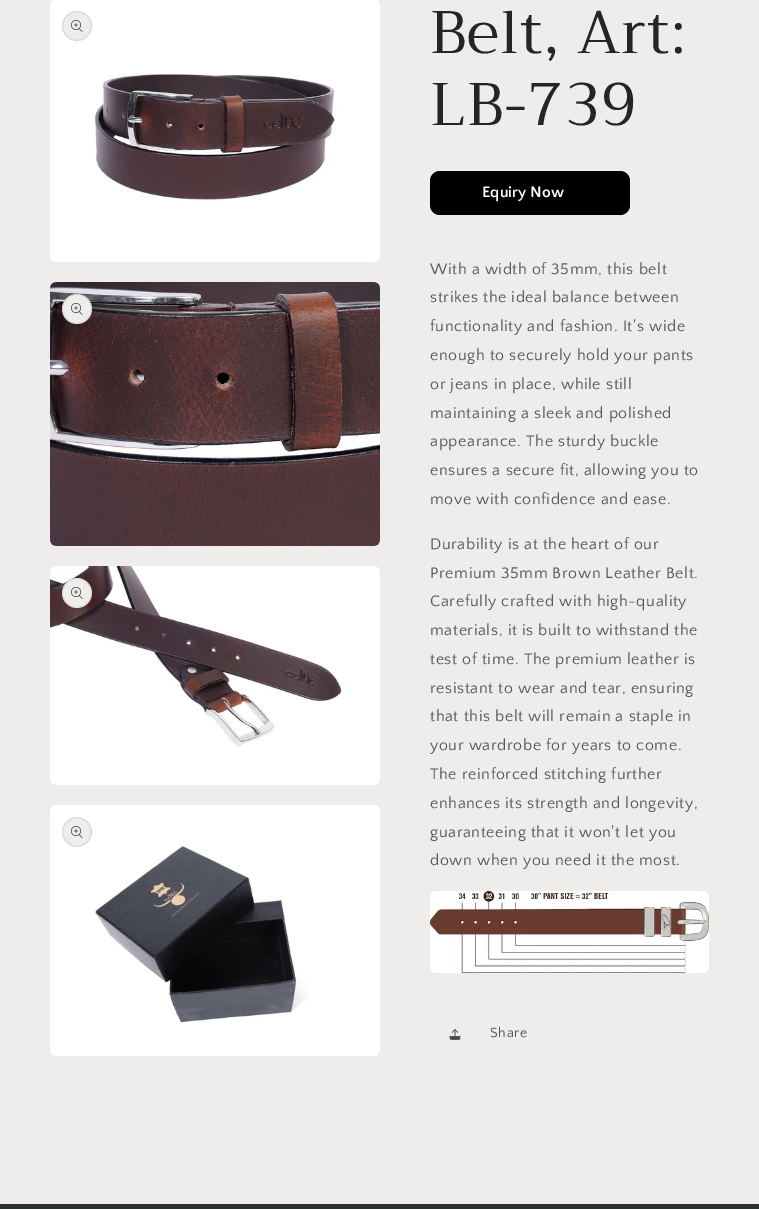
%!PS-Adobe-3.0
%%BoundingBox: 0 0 759 1209
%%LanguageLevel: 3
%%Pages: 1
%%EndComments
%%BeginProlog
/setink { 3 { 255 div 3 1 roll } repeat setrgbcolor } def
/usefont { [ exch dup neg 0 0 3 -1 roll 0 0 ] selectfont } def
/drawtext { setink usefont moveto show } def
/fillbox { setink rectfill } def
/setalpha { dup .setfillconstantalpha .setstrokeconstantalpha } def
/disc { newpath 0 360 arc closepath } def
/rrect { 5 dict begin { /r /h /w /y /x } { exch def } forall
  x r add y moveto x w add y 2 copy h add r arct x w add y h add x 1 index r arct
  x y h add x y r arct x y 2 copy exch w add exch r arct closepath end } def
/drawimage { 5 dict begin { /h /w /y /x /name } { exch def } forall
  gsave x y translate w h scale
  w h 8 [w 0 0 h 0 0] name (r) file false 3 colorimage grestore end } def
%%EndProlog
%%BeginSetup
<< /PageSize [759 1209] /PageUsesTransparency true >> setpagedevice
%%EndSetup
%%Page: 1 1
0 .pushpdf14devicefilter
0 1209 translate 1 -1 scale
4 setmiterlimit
0 0 759 1209 239 236 236 fillbox
(assets/img1.rgb) 50 0 330 262 drawimage
77 26 15 disc fill
0.1 setalpha
37 37 37 setink
77 26 14.5 disc stroke
1 setalpha
(assets/img2.rgb) 71 20 12 12 drawimage
(assets/img3.rgb) 50 282 330 264 drawimage
239 236 236 setink
77 309 15 disc fill
0.1 setalpha
37 37 37 setink
77 309 14.5 disc stroke
1 setalpha
(assets/img2.rgb) 71 303 12 12 drawimage
(assets/img4.rgb) 50 566 330 219 drawimage
239 236 236 setink
77 593 15 disc fill
0.1 setalpha
37 37 37 setink
77 593 14.5 disc stroke
1 setalpha
(assets/img2.rgb) 71 587 12 12 drawimage
(assets/img5.rgb) 50 805 330 251 drawimage
239 236 236 setink
77 832 15 disc fill
0.1 setalpha
37 37 37 setink
77 832 14.5 disc stroke
1 setalpha
(assets/img2.rgb) 71 826 12 12 drawimage
/Trirong-Regular 60 usefont
430 53 moveto 1 0 (Belt, Art:) ashow
430 125 moveto 1 0 (LB-739) ashow
0 0 0 setink
430 171 200 44 10 rrect fill
(Equiry Now) 482 197 /QuattrocentoSans-Bold 16 255 255 255 drawtext
/QuattrocentoSans-Regular 16 usefont
88 87 87 setink
430 274 moveto 0.6 0 (With a width of 35mm, this belt) ashow
430 302 moveto 0.6 0 (strikes the ideal balance between) ashow
430 331 moveto 0.6 0 (functionality and fashion. It's wide) ashow
430 360 moveto 0.6 0 (enough to securely hold your pants) ashow
430 389 moveto 0.6 0 (or jeans in place, while still) ashow
430 418 moveto 0.6 0 (maintaining a sleek and polished) ashow
430 446 moveto 0.6 0 (appearance. The sturdy buckle) ashow
430 475 moveto 0.6 0 (ensures a secure fit, allowing you to) ashow
430 504 moveto 0.6 0 (move with confidence and ease.) ashow
430 549 moveto 0.6 0 (Durability is at the heart of our) ashow
430 578 moveto 0.6 0 (Premium 35mm Brown Leather Belt.) ashow
430 606 moveto 0.6 0 (Carefully crafted with high-quality) ashow
430 635 moveto 0.6 0 (materials, it is built to withstand the) ashow
430 664 moveto 0.6 0 (test of time. The premium leather is) ashow
430 693 moveto 0.6 0 (resistant to wear and tear, ensuring) ashow
430 721 moveto 0.6 0 (that this belt will remain a staple in) ashow
430 750 moveto 0.6 0 (your wardrobe for years to come.) ashow
430 779 moveto 0.6 0 (The reinforced stitching further) ashow
430 808 moveto 0.6 0 (enhances its strength and longevity,) ashow
430 837 moveto 0.6 0 (guaranteeing that it won't let you) ashow
430 865 moveto 0.6 0 (down when you need it the most.) ashow
(assets/img6.rgb) 430 891 279 82 drawimage
(assets/img7.rgb) 449 1029 12 11 drawimage
/QuattrocentoSans-Regular 14 usefont
80 86 85 setink
490 1037 moveto 0.6 0 (Share) ashow
0 1204 759 5 44 51 47 fillbox
.poppdf14devicefilter showpage
%%EOF
